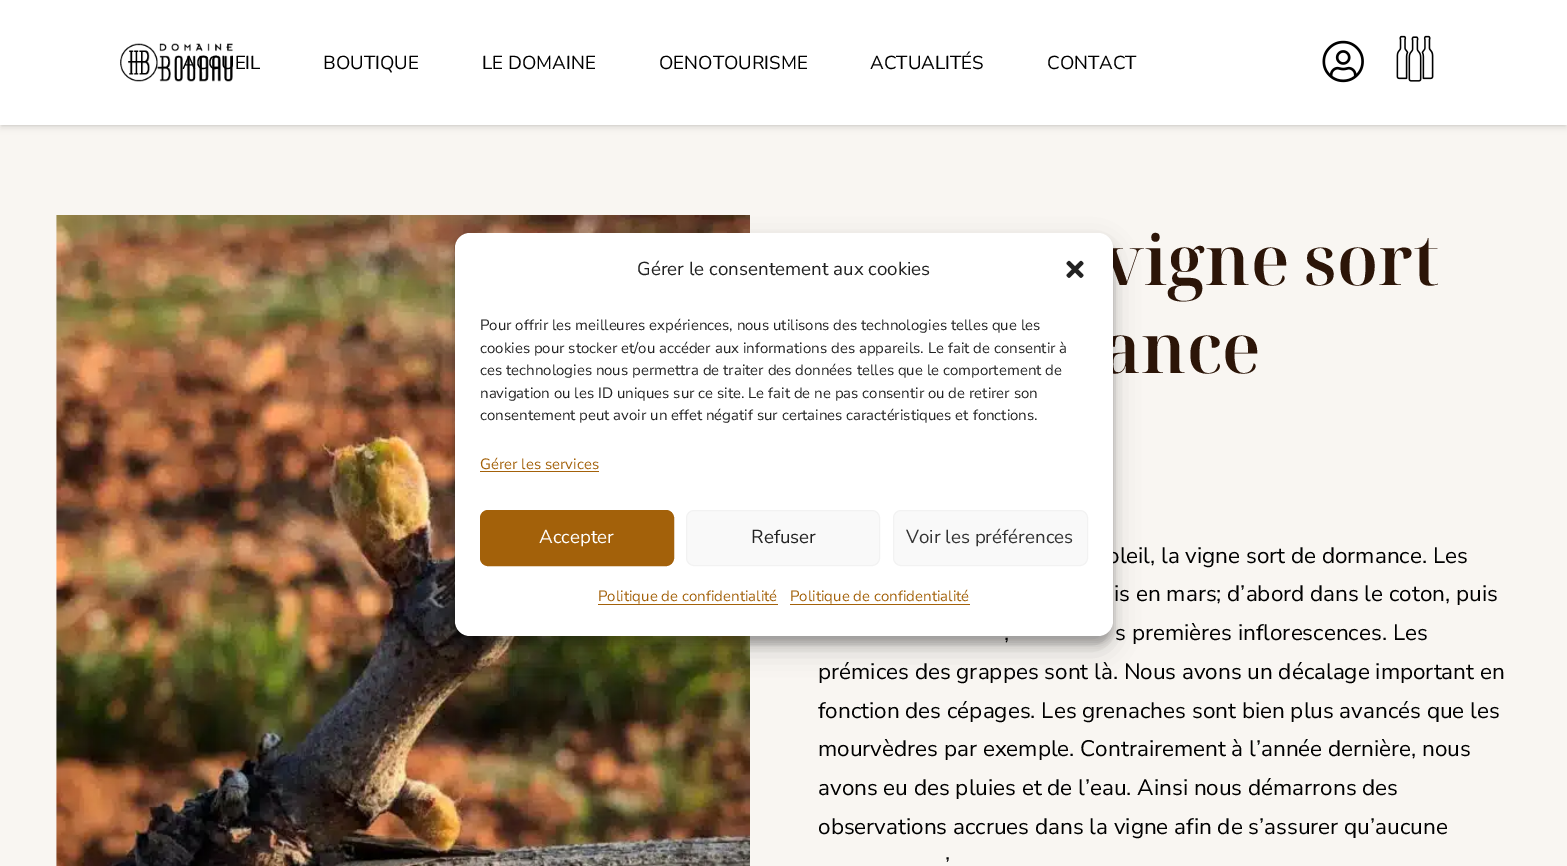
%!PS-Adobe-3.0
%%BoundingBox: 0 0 1567 866
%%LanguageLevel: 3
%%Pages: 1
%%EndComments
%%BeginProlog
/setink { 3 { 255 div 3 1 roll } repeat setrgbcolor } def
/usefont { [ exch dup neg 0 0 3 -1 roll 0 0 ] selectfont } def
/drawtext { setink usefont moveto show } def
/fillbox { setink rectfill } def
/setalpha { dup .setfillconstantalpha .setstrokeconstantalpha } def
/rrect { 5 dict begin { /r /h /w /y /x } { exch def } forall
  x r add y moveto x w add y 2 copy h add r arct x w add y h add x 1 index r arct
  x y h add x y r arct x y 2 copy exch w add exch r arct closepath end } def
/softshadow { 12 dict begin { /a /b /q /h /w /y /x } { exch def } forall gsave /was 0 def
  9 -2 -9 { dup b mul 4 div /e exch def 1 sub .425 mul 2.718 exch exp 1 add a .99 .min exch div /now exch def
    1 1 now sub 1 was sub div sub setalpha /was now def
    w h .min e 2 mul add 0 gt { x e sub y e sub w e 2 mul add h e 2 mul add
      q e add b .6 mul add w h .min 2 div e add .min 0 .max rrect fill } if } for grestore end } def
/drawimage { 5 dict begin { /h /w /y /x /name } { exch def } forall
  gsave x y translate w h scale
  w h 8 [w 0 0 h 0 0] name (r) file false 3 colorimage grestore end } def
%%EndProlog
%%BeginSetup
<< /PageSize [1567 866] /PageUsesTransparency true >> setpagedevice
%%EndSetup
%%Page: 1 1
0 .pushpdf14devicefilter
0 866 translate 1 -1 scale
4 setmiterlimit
0 0 1567 866 249 246 242 fillbox
0 0 0 setink
1 4 1565 122 0 0.5 0.05 softshadow
1 5 1565 123 0 3 0.1 softshadow
0 0 1567 125 255 255 255 fillbox
(assets/img1.rgb) 120 43 113 39 drawimage
(ACCUEIL) 182 69 /NunitoSans-Regular 18.75 0 0 0 drawtext
(BOUTIQUE) 323 69 /NunitoSans-Regular 18.75 0 0 0 drawtext
(LE DOMAINE) 482 69 /NunitoSans-Regular 18.75 0 0 0 drawtext
(OENOTOURISME) 659 69 /NunitoSans-Regular 18.75 0 0 0 drawtext
(ACTUALITÉS) 870 69 /NunitoSans-Regular 18.75 0 0 0 drawtext
(CONTACT) 1047 69 /NunitoSans-Regular 18.75 0 0 0 drawtext
(assets/img2.rgb) 1322 40 42 43 drawimage
(assets/img3.rgb) 1396 35 38 47 drawimage
(assets/img4.rgb) 56 215 694 651 drawimage
(vigne sort) 1103 285 /NotoSerifDisplay-SemiBold 68.75 44 21 8 drawtext
(ance) 1101 373 /NotoSerifDisplay-SemiBold 68.75 44 21 8 drawtext
(oleil, la vigne sort de dormance. Les) 1107 563 /NunitoSans-Regular 22.5 0 0 0 drawtext
(is en mars; d’abord dans le coton, puis) 1114 601 /NunitoSans-Regular 22.5 0 0 0 drawtext
(,) 1004 640 /NunitoSans-Regular 22.5 0 0 0 drawtext
(s premières inflorescences. Les) 1115 640 /NunitoSans-Regular 22.5 0 0 0 drawtext
(prémices des grappes sont là. Nous avons un décalage important en) 818 679 /NunitoSans-Regular 22.5 0 0 0 drawtext
(fonction des cépages. Les grenaches sont bien plus avancés que les) 818 718 /NunitoSans-Regular 22.5 0 0 0 drawtext
(mourvèdres par exemple. Contrairement à l’année dernière, nous) 818 756 /NunitoSans-Regular 22.5 0 0 0 drawtext
(avons eu des pluies et de l’eau. Ainsi nous démarrons des) 818 795 /NunitoSans-Regular 22.5 0 0 0 drawtext
(observations accrues dans la vigne afin de s’assurer qu’aucune) 818 834 /NunitoSans-Regular 22.5 0 0 0 drawtext
(’) 945 873 /NunitoSans-Regular 22.5 0 0 0 drawtext
455 240 658 404 15 4 0.23 softshadow
455 245 658 404 15 12.5 0.19 softshadow
255 255 255 setink
455 233 658 403 15 rrect fill
(Gérer le consentement aux cookies) 637 275 /NunitoSans-Regular 18.75 34 34 34 drawtext
(assets/img5.rgb) 1066 260 18 18 drawimage
(Pour offrir les meilleures expériences, nous utilisons des technologies telles que les) 480 330 /NunitoSans-Regular 15 34 34 34 drawtext
(cookies pour stocker et/ou accéder aux informations des appareils. Le fait de consentir à) 480 353 /NunitoSans-Regular 15 34 34 34 drawtext
(ces technologies nous permettra de traiter des données telles que le comportement de) 480 375 /NunitoSans-Regular 15 34 34 34 drawtext
(navigation ou les ID uniques sur ce site. Le fait de ne pas consentir ou de retirer son) 480 398 /NunitoSans-Regular 15 34 34 34 drawtext
(consentement peut avoir un effet négatif sur certaines caractéristiques et fonctions.) 480 420 /NunitoSans-Regular 15 34 34 34 drawtext
(Gérer les services) 480 469 /NunitoSans-Regular 15 163 97 10 drawtext
480 471 119 1 163 97 10 fillbox
480.5 510.5 193 55 7.5 rrect gsave fill grestore
stroke
(Accepter) 539 543 /NunitoSans-Regular 18.75 255 255 255 drawtext
249 249 249 setink
686.5 510.5 193 55 7.5 rrect gsave fill grestore
242 242 242 setink
stroke
(Refuser) 751 543 /NunitoSans-Regular 18.75 34 34 34 drawtext
249 249 249 setink
893.5 510.5 194 55 7.5 rrect gsave fill grestore
242 242 242 setink
stroke
(Voir les préférences) 906 543 /NunitoSans-Regular 18.75 51 51 51 drawtext
(Politique de confidentialité) 598 601 /NunitoSans-Regular 15 163 97 10 drawtext
598 604 180 1 163 97 10 fillbox
(Politique de confidentialité) 790 601 /NunitoSans-Regular 15 163 97 10 drawtext
790 604 180 1 163 97 10 fillbox
.poppdf14devicefilter showpage
%%EOF
